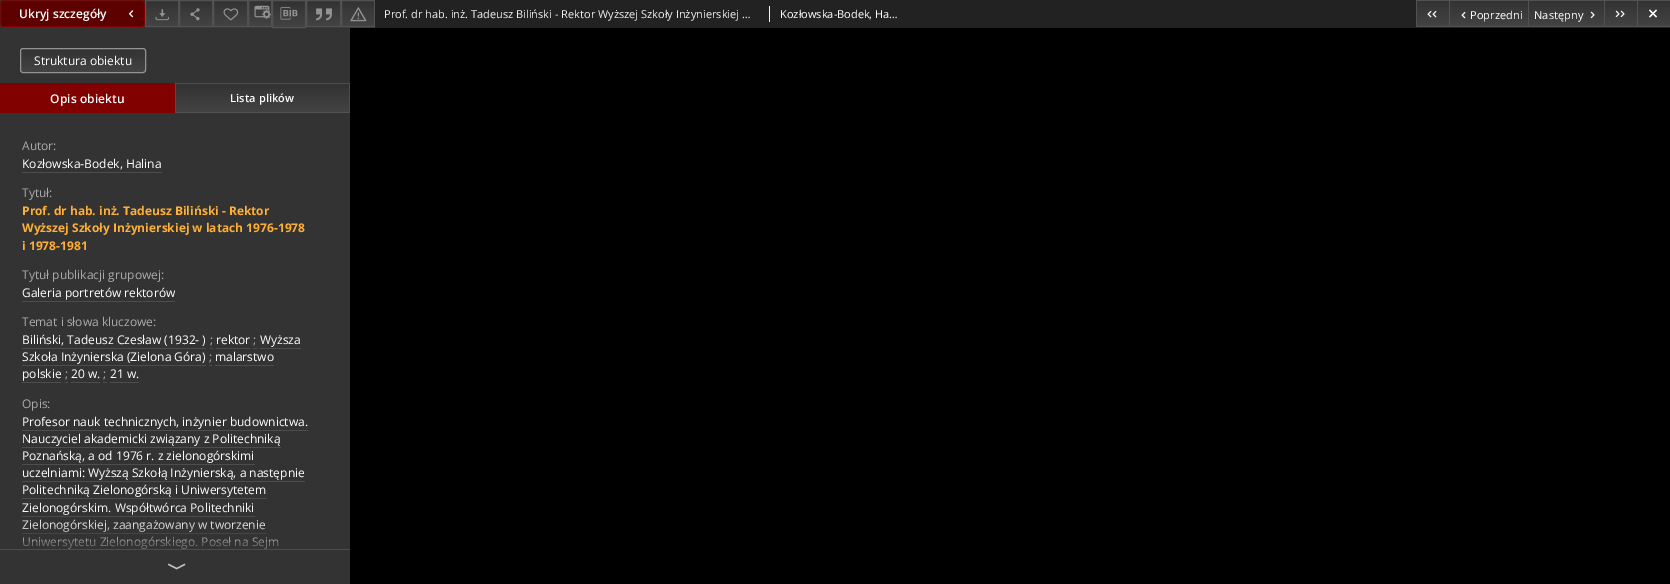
%!PS-Adobe-3.0
%%BoundingBox: 0 0 1670 584
%%LanguageLevel: 3
%%Pages: 1
%%EndComments
%%BeginProlog
/setink { 3 { 255 div 3 1 roll } repeat setrgbcolor } def
/usefont { [ exch dup neg 0 0 3 -1 roll 0 0 ] selectfont } def
/drawtext { setink usefont moveto show } def
/fillbox { setink rectfill } def
/setalpha { dup .setfillconstantalpha .setstrokeconstantalpha } def
/rrect { 5 dict begin { /r /h /w /y /x } { exch def } forall
  x r add y moveto x w add y 2 copy h add r arct x w add y h add x 1 index r arct
  x y h add x y r arct x y 2 copy exch w add exch r arct closepath end } def
/softshadow { 12 dict begin { /a /b /q /h /w /y /x } { exch def } forall gsave /was 0 def
  9 -2 -9 { dup b mul 4 div /e exch def 1 sub .425 mul 2.718 exch exp 1 add a .99 .min exch div /now exch def
    1 1 now sub 1 was sub div sub setalpha /was now def
    w h .min e 2 mul add 0 gt { x e sub y e sub w e 2 mul add h e 2 mul add
      q e add b .6 mul add w h .min 2 div e add .min 0 .max rrect fill } if } for grestore end } def
/drawimage { 5 dict begin { /h /w /y /x /name } { exch def } forall
  gsave x y translate w h scale
  w h 8 [w 0 0 h 0 0] name (r) file false 3 colorimage grestore end } def
%%EndProlog
%%BeginSetup
<< /PageSize [1670 584] /PageUsesTransparency true >> setpagedevice
%%EndSetup
%%Page: 1 1
0 .pushpdf14devicefilter
0 584 translate 1 -1 scale
4 setmiterlimit
0 0 1670 584 51 51 51 fillbox
92 1 0 setink
0.5 0.5 144 26 2.5 rrect gsave fill grestore
129 1 0 setink
stroke
(assets/img1.rgb) 128 10 6 8 drawimage
51 51 51 setink
-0.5 -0.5 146 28 3.5 rrect stroke
(Ukryj szczegóły) 19 18 /OpenSans-SemiBold 12 255 255 255 drawtext
gsave 146 5 moveto 178 5 lineto 178 26 lineto 146 26 lineto closepath clip newpath
<< /ShadingType 2 /ColorSpace /DeviceRGB /Coords [162 1 162 26] /Extend [true true] /Function << /FunctionType 2 /Domain [0 1] /C0 [0.2 0.2 0.2] /C1 [0.263 0.263 0.263] /N 1 >> >> shfill grestore
82 82 82 setink
145.5 0.5 33 26 rectstroke
(assets/img2.rgb) 155 9 14 12 drawimage
gsave 180 5 moveto 212 5 lineto 212 26 lineto 180 26 lineto closepath clip newpath
<< /ShadingType 2 /ColorSpace /DeviceRGB /Coords [196 1 196 26] /Extend [true true] /Function << /FunctionType 2 /Domain [0 1] /C0 [0.2 0.2 0.2] /C1 [0.263 0.263 0.263] /N 1 >> >> shfill grestore
179.5 0.5 33 26 rectstroke
(assets/img3.rgb) 190 8 10 13 drawimage
gsave 214 5 moveto 247 5 lineto 247 26 lineto 214 26 lineto closepath clip newpath
<< /ShadingType 2 /ColorSpace /DeviceRGB /Coords [231 1 231 26] /Extend [true true] /Function << /FunctionType 2 /Domain [0 1] /C0 [0.2 0.2 0.2] /C1 [0.263 0.263 0.263] /N 1 >> >> shfill grestore
213.5 0.5 34 26 rectstroke
(assets/img4.rgb) 223 8 16 13 drawimage
gsave 249 5 moveto 271 5 lineto 271 26 lineto 249 26 lineto closepath clip newpath
<< /ShadingType 2 /ColorSpace /DeviceRGB /Coords [260 1 260 26] /Extend [true true] /Function << /FunctionType 2 /Domain [0 1] /C0 [0.2 0.2 0.2] /C1 [0.263 0.263 0.263] /N 1 >> >> shfill grestore
248.5 0.5 23 26 rectstroke
(assets/img5.rgb) 254 5 17 14 drawimage
gsave 273 5 moveto 305 5 lineto 305 27 lineto 273 27 lineto closepath clip newpath
<< /ShadingType 2 /ColorSpace /DeviceRGB /Coords [289 1 289 27] /Extend [true true] /Function << /FunctionType 2 /Domain [0 1] /C0 [0.2 0.2 0.2] /C1 [0.263 0.263 0.263] /N 1 >> >> shfill grestore
272.5 0.5 33 27 rectstroke
(assets/img6.rgb) 280 7 18 13 drawimage
gsave 307 5 moveto 340 5 lineto 340 26 lineto 307 26 lineto closepath clip newpath
<< /ShadingType 2 /ColorSpace /DeviceRGB /Coords [324 1 324 26] /Extend [true true] /Function << /FunctionType 2 /Domain [0 1] /C0 [0.2 0.2 0.2] /C1 [0.263 0.263 0.263] /N 1 >> >> shfill grestore
306.5 0.5 34 26 rectstroke
(assets/img7.rgb) 316 8 16 13 drawimage
gsave 342 5 moveto 374 5 lineto 374 26 lineto 342 26 lineto closepath clip newpath
<< /ShadingType 2 /ColorSpace /DeviceRGB /Coords [358 1 358 26] /Extend [true true] /Function << /FunctionType 2 /Domain [0 1] /C0 [0.2 0.2 0.2] /C1 [0.263 0.263 0.263] /N 1 >> >> shfill grestore
341.5 0.5 33 26 rectstroke
(assets/img8.rgb) 350 7 17 15 drawimage
375 0 1295 28 34 34 34 fillbox
769 6 1 16 245 245 245 fillbox
(Prof. dr hab. inż. Tadeusz Biliński - Rektor Wyższej Szkoły Inżynierskiej …) 384 18 /OpenSans-Regular 11 241 239 239 drawtext
(Kozłowska-Bodek, Ha…) 780 18 /OpenSans-Regular 11 255 255 255 drawtext
gsave 1417 1 moveto 1449 1 lineto 1449 26 lineto 1417 26 lineto closepath clip newpath
<< /ShadingType 2 /ColorSpace /DeviceRGB /Coords [1433 1 1433 26] /Extend [true true] /Function << /FunctionType 2 /Domain [0 1] /C0 [0.2 0.2 0.2] /C1 [0.263 0.263 0.263] /N 1 >> >> shfill grestore
1416 0 254 1 82 82 82 fillbox
1416 26 254 1 82 82 82 fillbox
1416 0 1 27 82 82 82 fillbox
(assets/img9.rgb) 1427 10 5 8 drawimage
(assets/img9.rgb) 1432 10 5 8 drawimage
gsave 1450 1 moveto 1528 1 lineto 1528 26 lineto 1450 26 lineto closepath clip newpath
<< /ShadingType 2 /ColorSpace /DeviceRGB /Coords [1489 1 1489 26] /Extend [true true] /Function << /FunctionType 2 /Domain [0 1] /C0 [0.2 0.2 0.2] /C1 [0.263 0.263 0.263] /N 1 >> >> shfill grestore
1449 0 1 27 82 82 82 fillbox
(assets/img10.rgb) 1461 11 5 8 drawimage
255 255 255 setink
1470 19 moveto 0.1 0 (Poprzedni) ashow
gsave 1529 1 moveto 1604 1 lineto 1604 26 lineto 1529 26 lineto closepath clip newpath
<< /ShadingType 2 /ColorSpace /DeviceRGB /Coords [1567 1 1567 26] /Extend [true true] /Function << /FunctionType 2 /Domain [0 1] /C0 [0.2 0.2 0.2] /C1 [0.263 0.263 0.263] /N 1 >> >> shfill grestore
1528 0 1 27 82 82 82 fillbox
255 255 255 setink
1534 19 moveto 0.1 0 (Następny) ashow
(assets/img11.rgb) 1590 11 5 8 drawimage
gsave 1605 1 moveto 1637 1 lineto 1637 26 lineto 1605 26 lineto closepath clip newpath
<< /ShadingType 2 /ColorSpace /DeviceRGB /Coords [1621 1 1621 26] /Extend [true true] /Function << /FunctionType 2 /Domain [0 1] /C0 [0.2 0.2 0.2] /C1 [0.263 0.263 0.263] /N 1 >> >> shfill grestore
1604 0 1 27 82 82 82 fillbox
(assets/img12.rgb) 1615 10 5 8 drawimage
(assets/img12.rgb) 1620 10 5 8 drawimage
gsave 1638 1 moveto 1670 1 lineto 1670 26 lineto 1638 26 lineto closepath clip newpath
<< /ShadingType 2 /ColorSpace /DeviceRGB /Coords [1654 1 1654 26] /Extend [true true] /Function << /FunctionType 2 /Domain [0 1] /C0 [0.2 0.2 0.2] /C1 [0.263 0.263 0.263] /N 1 >> >> shfill grestore
1637 0 1 27 82 82 82 fillbox
255 255 255 setink
1649 16.5 moveto 1656 9.5 lineto 1657 10.5 lineto 1650 17.5 lineto closepath fill
1650 9.5 moveto 1657 16.5 lineto 1656 17.5 lineto 1649 10.5 lineto closepath fill
gsave
20 48 126 25 3 rrect clip newpath
gsave 20 49 moveto 146 49 lineto 146 72 lineto 20 72 lineto closepath clip newpath
<< /ShadingType 2 /ColorSpace /DeviceRGB /Coords [83 49 83 72] /Extend [true true] /Function << /FunctionType 2 /Domain [0 1] /C0 [0.2 0.2 0.2] /C1 [0.263 0.263 0.263] /N 1 >> >> shfill grestore
grestore
147 147 147 setink
20.5 48.5 125 24 2.5 rrect stroke
(Struktura obiektu) 34 65 /OpenSans-Regular 12 255 255 255 drawtext
0 83 175 30 129 1 0 fillbox
/OpenSans-SemiBold 12 usefont
255 255 255 setink
50 103 moveto 0.1 0 (Opis obiektu) ashow
gsave 176 88 moveto 349 88 lineto 349 112 lineto 176 112 lineto closepath clip newpath
<< /ShadingType 2 /ColorSpace /DeviceRGB /Coords [263 84 263 112] /Extend [true true] /Function << /FunctionType 2 /Domain [0 1] /C0 [0.2 0.2 0.2] /C1 [0.263 0.263 0.263] /N 1 >> >> shfill grestore
175 83 175 1 77 77 77 fillbox
349 83 1 30 77 77 77 fillbox
175 112 175 1 82 82 82 fillbox
175 83 1 30 77 77 77 fillbox
/OpenSans-SemiBold 11 usefont
255 255 255 setink
230 102 moveto 0.1 0 (Lista plików) ashow
(Autor:) 22 150 /OpenSans-Regular 12 171 171 171 drawtext
(Kozłowska-Bodek, Halina) 22 168 /OpenSans-Regular 12 255 255 255 drawtext
22 172 140 1 77 77 77 fillbox
(Tytuł:) 22 197 /OpenSans-Regular 12 171 171 171 drawtext
(Prof. dr hab. inż. Tadeusz Biliński - Rektor) 22 215 /OpenSans-Bold 12 255 175 53 drawtext
(Wyższej Szkoły Inżynierskiej w latach 1976-1978) 22 232 /OpenSans-Bold 12 255 175 53 drawtext
(i 1978-1981) 22 250 /OpenSans-Bold 12 255 175 53 drawtext
(Tytuł publikacji grupowej:) 22 279 /OpenSans-Regular 12 171 171 171 drawtext
(Galeria portretów rektorów) 22 297 /OpenSans-Regular 12 255 255 255 drawtext
22 301 153 1 77 77 77 fillbox
(Temat i słowa kluczowe:) 22 326 /OpenSans-Regular 12 171 171 171 drawtext
(Biliński, Tadeusz Czesław \(1932- \)) 22 344 /OpenSans-Regular 12 255 255 255 drawtext
22 348 184 1 77 77 77 fillbox
(;) 210 344 /OpenSans-Regular 12 171 171 171 drawtext
210 348 3 1 77 77 77 fillbox
(rektor) 216 344 /OpenSans-Regular 12 255 255 255 drawtext
216 348 34 1 77 77 77 fillbox
(;) 253 344 /OpenSans-Regular 12 171 171 171 drawtext
253 348 4 1 77 77 77 fillbox
(Wyższa) 260 344 /OpenSans-Regular 12 255 255 255 drawtext
260 348 41 1 77 77 77 fillbox
(Szkoła Inżynierska \(Zielona Góra\)) 22 361 /OpenSans-Regular 12 255 255 255 drawtext
22 365 184 1 77 77 77 fillbox
(;) 209 361 /OpenSans-Regular 12 171 171 171 drawtext
209 365 3 1 77 77 77 fillbox
(malarstwo) 215 361 /OpenSans-Regular 12 255 255 255 drawtext
215 365 59 1 77 77 77 fillbox
(polskie) 22 378 /OpenSans-Regular 12 255 255 255 drawtext
22 382 39 1 77 77 77 fillbox
(;) 65 378 /OpenSans-Regular 12 171 171 171 drawtext
65 382 3 1 77 77 77 fillbox
(20 w.) 71 378 /OpenSans-Regular 12 255 255 255 drawtext
71 382 29 1 77 77 77 fillbox
(;) 103 378 /OpenSans-Regular 12 171 171 171 drawtext
103 382 4 1 77 77 77 fillbox
(21 w.) 110 378 /OpenSans-Regular 12 255 255 255 drawtext
110 382 29 1 77 77 77 fillbox
(Opis:) 22 408 /OpenSans-Regular 12 171 171 171 drawtext
(Profesor nauk technicznych, inżynier budownictwa.) 22 426 /OpenSans-Regular 12 255 255 255 drawtext
22 430 286 1 77 77 77 fillbox
(Nauczyciel akademicki związany z Politechniką) 22 443 /OpenSans-Regular 12 255 255 255 drawtext
22 447 259 1 77 77 77 fillbox
(Poznańską, a od 1976 r. z zielonogórskimi) 22 460 /OpenSans-Regular 12 255 255 255 drawtext
22 464 233 1 77 77 77 fillbox
(uczelniami: Wyższą Szkołą Inżynierską, a następnie) 22 477 /OpenSans-Regular 12 255 255 255 drawtext
22 481 283 1 77 77 77 fillbox
(Politechniką Zielonogórską i Uniwersytetem) 22 494 /OpenSans-Regular 12 255 255 255 drawtext
22 498 245 1 77 77 77 fillbox
(Zielonogórskim. Współtwórca Politechniki) 22 512 /OpenSans-Regular 12 255 255 255 drawtext
22 516 233 1 77 77 77 fillbox
(Zielonogórskiej, zaangażowany w tworzenie) 22 529 /OpenSans-Regular 12 255 255 255 drawtext
22 533 244 1 77 77 77 fillbox
(Uniwersytetu Zielonogórskiego. Poseł na Sejm) 22 546 /OpenSans-Regular 12 255 255 255 drawtext
51 51 51 setink
0 538 350 35 0 15 1 softshadow
0 549 350 1 77 77 77 fillbox
(assets/img13.rgb) 168 563 18 7 drawimage
350 28 1320 556 0 0 0 fillbox
.poppdf14devicefilter showpage
%%EOF
